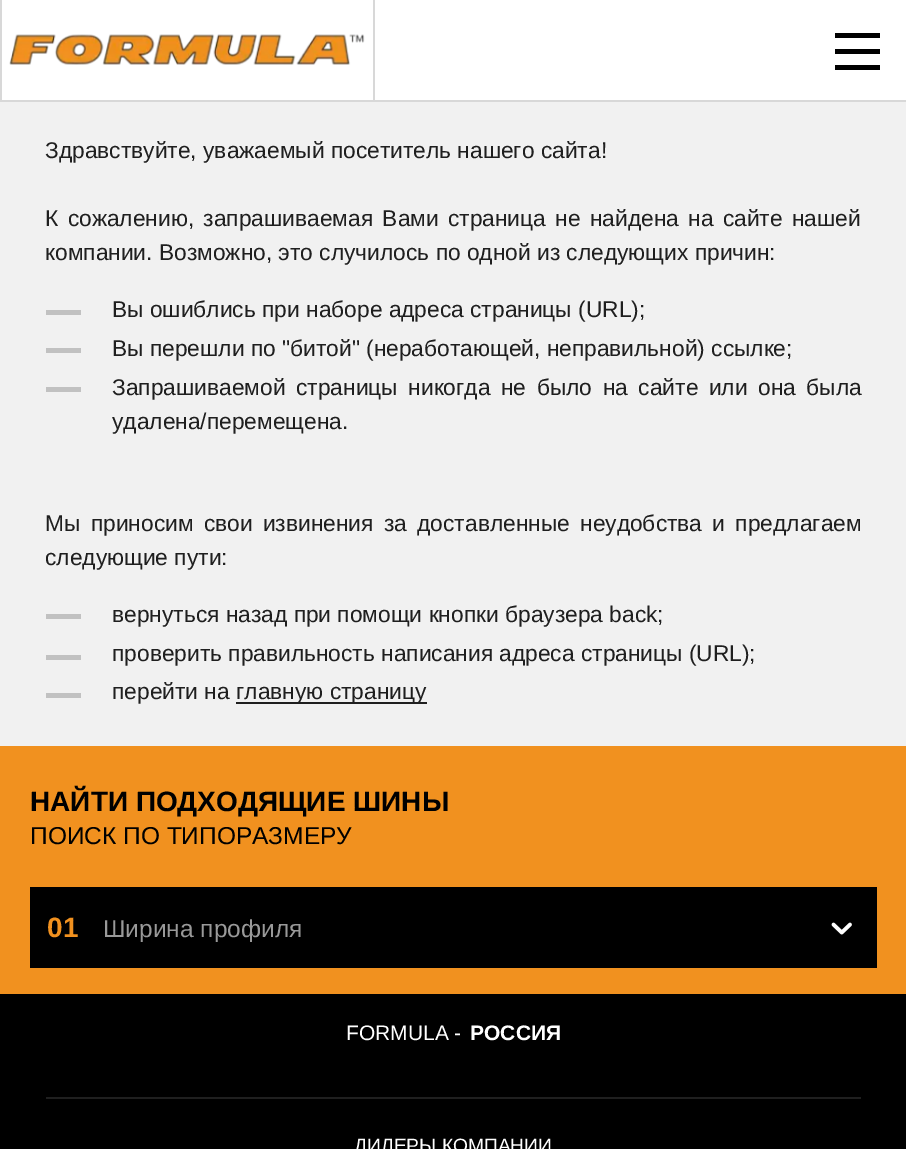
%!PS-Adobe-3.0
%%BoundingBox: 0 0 906 1149
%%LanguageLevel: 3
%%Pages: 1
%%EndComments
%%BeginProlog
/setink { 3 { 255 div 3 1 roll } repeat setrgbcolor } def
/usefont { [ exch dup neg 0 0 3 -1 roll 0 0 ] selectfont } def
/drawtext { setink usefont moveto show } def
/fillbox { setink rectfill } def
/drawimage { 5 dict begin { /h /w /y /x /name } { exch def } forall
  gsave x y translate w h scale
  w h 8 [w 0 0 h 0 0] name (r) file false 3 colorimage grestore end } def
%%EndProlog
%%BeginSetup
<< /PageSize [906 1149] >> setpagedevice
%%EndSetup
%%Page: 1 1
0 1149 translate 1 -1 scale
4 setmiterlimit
0 0 906 1149 241 241 241 fillbox
2 0 904 100 255 255 255 fillbox
0 100 906 2 216 216 216 fillbox
373 0 2 100 216 216 216 fillbox
0 0 2 100 216 216 216 fillbox
(assets/img1.rgb) 9 34 356 31 drawimage
835 49 45 5 0 0 0 fillbox
835 33 45 5 0 0 0 fillbox
835 65 45 5 0 0 0 fillbox
(Здравствуйте, уважаемый посетитель нашего сайта!) 45 158 /LiberationSans-Regular 22.75 31 31 31 drawtext
45 226 moveto 3 0 32 (К сожалению, запрашиваемая Вами страница не найдена на сайте нашей) widthshow
(компании. Возможно, это случилось по одной из следующих причин:) 45 260 /LiberationSans-Regular 22.75 31 31 31 drawtext
46 310 35 5 193 193 193 fillbox
(Вы ошиблись при наборе адреса страницы \(URL\);) 112 317 /LiberationSans-Regular 22.75 31 31 31 drawtext
46 348 35 5 193 193 193 fillbox
(Вы перешли по "битой" \(неработающей, неправильной\) ссылке;) 112 356 /LiberationSans-Regular 22.75 31 31 31 drawtext
46 387 35 5 193 193 193 fillbox
31 31 31 setink
112 395 moveto 4.25 0 32 (Запрашиваемой страницы никогда не было на сайте или она была) widthshow
(удалена/перемещена.) 112 429 /LiberationSans-Regular 22.75 31 31 31 drawtext
45 531 moveto 4 0 32 (Мы приносим свои извинения за доставленные неудобства и предлагаем) widthshow
(следующие пути:) 45 565 /LiberationSans-Regular 22.75 31 31 31 drawtext
46 614 35 5 193 193 193 fillbox
(вернуться назад при помощи кнопки браузера back;) 112 622 /LiberationSans-Regular 22.75 31 31 31 drawtext
46 655 35 5 193 193 193 fillbox
(проверить правильность написания адреса страницы \(URL\);) 112 661 /LiberationSans-Regular 22.75 31 31 31 drawtext
46 693 35 5 193 193 193 fillbox
(перейти на) 112 699 /LiberationSans-Regular 22.75 31 31 31 drawtext
236 702 191 2 31 31 31 fillbox
(главную страницу) 236 699 /LiberationSans-Regular 22.75 31 31 31 drawtext
0 746 906 248 241 145 31 fillbox
(НАЙТИ ПОДХОДЯЩИЕ ШИНЫ) 30 811 /LiberationSans-Bold 28 0 0 0 drawtext
(ПОИСК ПО ТИПОРАЗМЕРУ) 30 844 /LiberationSans-Regular 24.5 0 0 0 drawtext
30 887 847 81 0 0 0 fillbox
(01) 47 937 /LiberationSans-Bold 28 241 145 31 drawtext
(Ширина профиля) 103 937 /LiberationSans-Regular 24.5 153 153 153 drawtext
(assets/img2.rgb) 831 922 21 13 drawimage
0 994 906 155 0 0 0 fillbox
(FORMULA -) 346 1040 /LiberationSans-Regular 21 255 255 255 drawtext
(РОССИЯ) 470 1040 /LiberationSans-Bold 21 255 255 255 drawtext
46 1097 815 2 31 31 31 fillbox
(ДИЛЕРЫ КОМПАНИИ) 354 1152 /LiberationSans-Regular 19.25 255 255 255 drawtext
showpage
%%EOF
